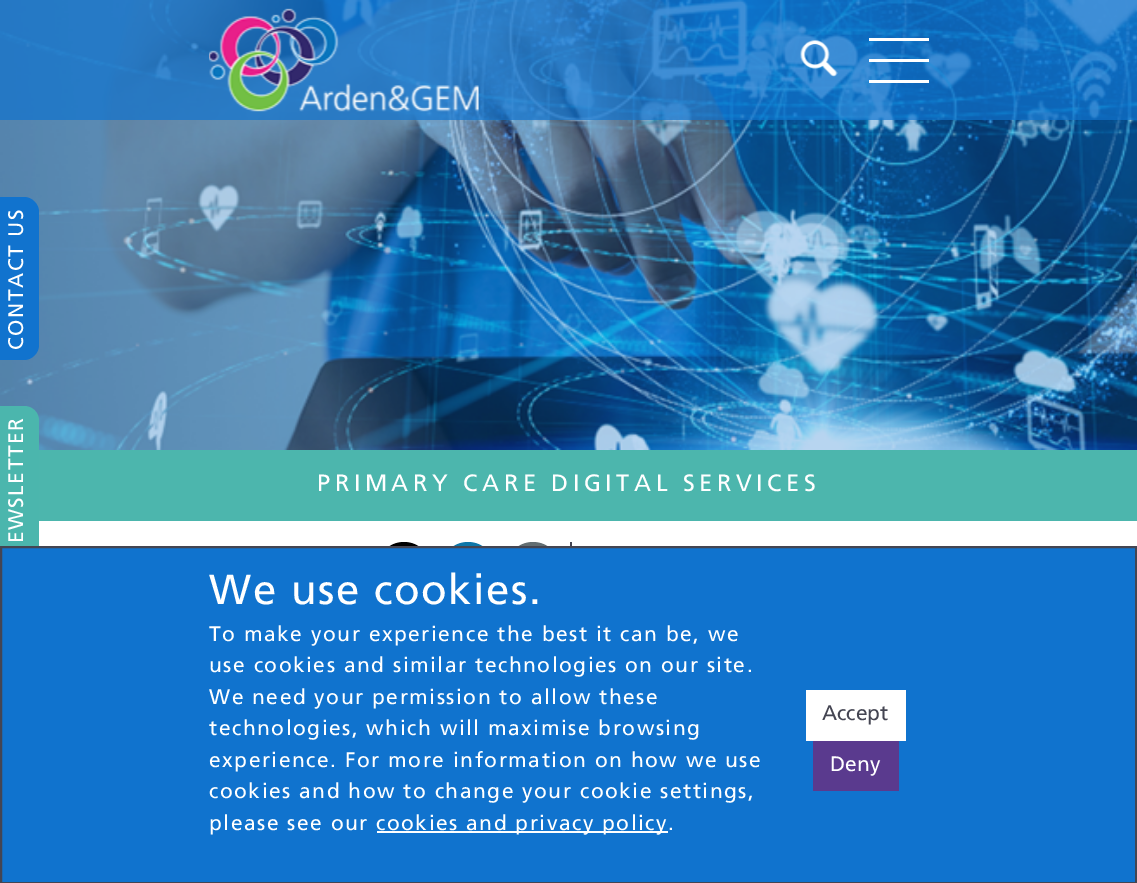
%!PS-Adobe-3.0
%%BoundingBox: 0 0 1137 883
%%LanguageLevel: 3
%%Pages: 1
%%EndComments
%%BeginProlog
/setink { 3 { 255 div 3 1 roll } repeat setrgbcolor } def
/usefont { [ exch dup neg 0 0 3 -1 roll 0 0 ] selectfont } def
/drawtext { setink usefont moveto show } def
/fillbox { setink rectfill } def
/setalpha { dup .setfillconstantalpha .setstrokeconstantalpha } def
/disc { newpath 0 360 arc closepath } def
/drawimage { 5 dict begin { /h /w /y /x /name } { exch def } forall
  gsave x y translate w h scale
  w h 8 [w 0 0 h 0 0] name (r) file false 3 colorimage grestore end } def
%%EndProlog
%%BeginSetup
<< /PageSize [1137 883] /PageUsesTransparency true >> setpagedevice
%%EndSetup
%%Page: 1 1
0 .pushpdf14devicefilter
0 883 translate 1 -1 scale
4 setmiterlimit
0 0 1137 883 255 255 255 fillbox
(assets/img3.rgb) 0 0 1137 450 drawimage
0.7 setalpha
0 0 1137 120 16 115 206 fillbox
1 setalpha
(assets/img1.rgb) 209 8 270 104 drawimage
(assets/img2.rgb) 800 40 38 37 drawimage
869 38 60 3 255 255 255 fillbox
869 59 60 3 255 255 255 fillbox
869 80 60 3 255 255 255 fillbox
17 115 206 setink
-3 360 moveto -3 197 lineto 24 197 lineto 32 197 39 204 39 212 curveto 39 345 lineto 39 353 32 360 24 360 curveto closepath fill
/Frutiger-Regular 21 usefont
255 255 255 setink
gsave 23 350 translate -90 rotate 0 0 moveto 1.5 0 (CONTACT US) ashow grestore
75 182 173 setink
-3 570 moveto -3 406 lineto 24 406 lineto 32 406 39 412 39 421 curveto 39 555 lineto 39 563 32 570 24 570 curveto closepath fill
255 255 255 setink
gsave 23 560 translate -90 rotate 0 0 moveto 1.5 0 (NEWSLETTER) ashow grestore
39 450 1098 71 76 182 173 fillbox
/Frutiger-Regular 23.6 usefont
255 255 255 setink
317 491 moveto 4.5 0 (PRIMARY CARE DIGITAL SERVICES) ashow
0 0 0 setink
404 569 27 disc fill
14 118 168 setink
468 569 27 disc fill
99 110 114 setink
533 569 27 disc fill
570 542 2 4 68 69 82 fillbox
16 115 206 setink
1 547 moveto 1136 547 lineto 1136 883 lineto 1 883 lineto closepath gsave fill grestore
68 69 82 setink
2 setlinewidth
stroke
/Frutiger-Regular 42 usefont
255 255 255 setink
209 604 moveto 1.5 0 (We use cookies.) ashow
/Frutiger-Regular 21 usefont
209 641 moveto 1.5 0 (To make your experience the best it can be, we) ashow
209 672 moveto 1.5 0 (use cookies and similar technologies on our site.) ashow
209 704 moveto 1.5 0 (We need your permission to allow these) ashow
209 735 moveto 1.5 0 (technologies, which will maximise browsing) ashow
209 767 moveto 1.5 0 (experience. For more information on how we use) ashow
209 798 moveto 1.5 0 (cookies and how to change your cookie settings,) ashow
209 830 moveto 1.5 0 (please see our) ashow
377 831 291 2 255 255 255 fillbox
376 830 moveto 1.5 0 (cookies and privacy policy.) ashow
806 690 100 51 255 255 255 fillbox
(Accept) 822 720 /Frutiger-Regular 21 68 69 82 drawtext
813 741 86 50 90 58 142 fillbox
(Deny) 830 771 /Frutiger-Regular 21 255 255 255 drawtext
.poppdf14devicefilter showpage
%%EOF
